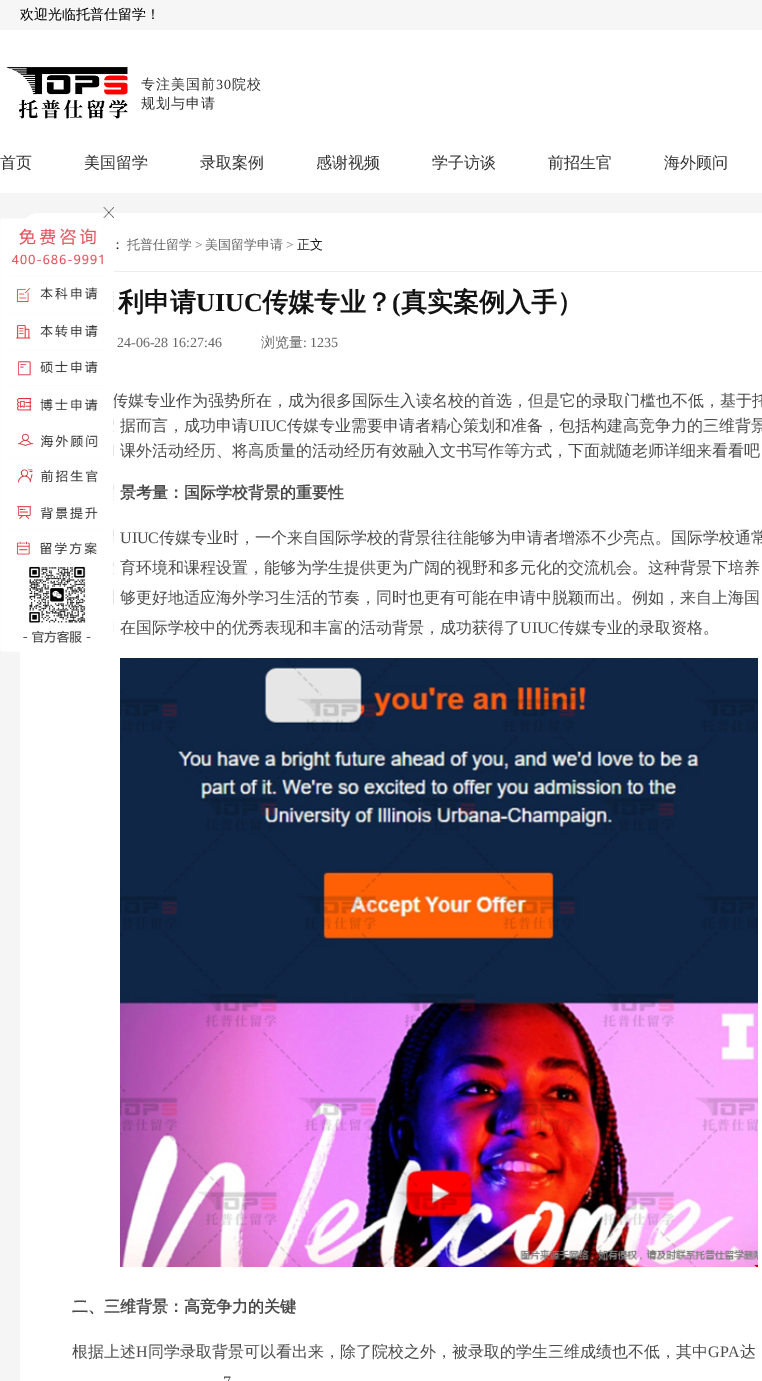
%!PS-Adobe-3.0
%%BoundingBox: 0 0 762 1381
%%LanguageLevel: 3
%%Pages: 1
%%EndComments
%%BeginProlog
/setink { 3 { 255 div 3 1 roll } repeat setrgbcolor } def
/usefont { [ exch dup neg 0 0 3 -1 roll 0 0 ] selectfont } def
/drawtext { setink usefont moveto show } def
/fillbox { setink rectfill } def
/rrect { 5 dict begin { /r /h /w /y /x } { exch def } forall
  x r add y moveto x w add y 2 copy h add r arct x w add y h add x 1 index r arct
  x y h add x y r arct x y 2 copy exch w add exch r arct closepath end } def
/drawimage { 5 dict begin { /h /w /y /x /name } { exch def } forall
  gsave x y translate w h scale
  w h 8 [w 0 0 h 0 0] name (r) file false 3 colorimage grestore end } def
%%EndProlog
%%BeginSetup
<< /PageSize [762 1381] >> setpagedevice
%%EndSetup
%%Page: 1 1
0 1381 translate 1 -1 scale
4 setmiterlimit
0 0 762 1381 255 255 255 fillbox
0 0 762 30 246 246 246 fillbox
(欢迎光临托普仕留学！) 20 19 /WenQuanYiZenHei-Medium 14 0 0 0 drawtext
(assets/img1.rgb) 6 67 122 52 drawimage
51 51 51 setink
141 89 moveto 1 0 (专注美国前) ashow
/LiberationSerif-Regular 14 usefont
216 89 moveto 1 0 (30) ashow
/WenQuanYiZenHei-Medium 14 usefont
232 89 moveto 1 0 (院校) ashow
141 108 moveto 1 0 (规划与申请) ashow
(首页) 0 168 /WenQuanYiZenHei-Medium 16 51 51 51 drawtext
(美国留学) 84 168 /WenQuanYiZenHei-Medium 16 51 51 51 drawtext
(录取案例) 200 168 /WenQuanYiZenHei-Medium 16 51 51 51 drawtext
(感谢视频) 316 168 /WenQuanYiZenHei-Medium 16 51 51 51 drawtext
(学子访谈) 432 168 /WenQuanYiZenHei-Medium 16 51 51 51 drawtext
(前招生官) 548 168 /WenQuanYiZenHei-Medium 16 51 51 51 drawtext
(海外顾问) 664 168 /WenQuanYiZenHei-Medium 16 51 51 51 drawtext
0 193 762 1188 245 245 245 fillbox
255 255 255 setink
20 213 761 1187 19 rrect fill
(assets/img2.rgb) 103 207 11 11 drawimage
113 271 649 1 236 236 236 fillbox
(传媒专业作为强势所在，成为很多国际生入读名校的首选，但是它的录取门槛也不低，基于托) 112 406 /WenQuanYiZenHei-Medium 16 74 74 74 drawtext
(assets/img3.rgb) 0 218 114 434 drawimage
(：) 111 249 /WenQuanYiZenHei-Medium 13 19 19 19 drawtext
(托普仕留学) 127 249 /WenQuanYiZenHei-Medium 13 102 102 102 drawtext
(>) 195 249 /LiberationSerif-Regular 13 102 102 102 drawtext
(美国留学申请) 205 249 /WenQuanYiZenHei-Medium 13 102 102 102 drawtext
(>) 286 249 /LiberationSerif-Regular 13 102 102 102 drawtext
(正文) 297 249 /WenQuanYiZenHei-Medium 13 19 19 19 drawtext
(利申请) 118 311 /WenQuanYiZenHei-Bold 26 19 19 19 drawtext
(UIUC) 196 311 /LiberationSerif-Bold 26 19 19 19 drawtext
(传媒专业？) 262 311 /WenQuanYiZenHei-Bold 26 19 19 19 drawtext
(\() 392 311 /LiberationSerif-Bold 26 19 19 19 drawtext
(真实案例入手）) 401 311 /WenQuanYiZenHei-Bold 26 19 19 19 drawtext
(24-06-28 16:27:46) 117 347 /LiberationSerif-Regular 14 102 102 102 drawtext
(浏览量) 261 347 /WenQuanYiZenHei-Medium 14 102 102 102 drawtext
(: 1235) 303 347 /LiberationSerif-Regular 14 102 102 102 drawtext
(据而言，成功申请) 120 431 /WenQuanYiZenHei-Medium 16 74 74 74 drawtext
(UIUC) 248 431 /LiberationSerif-Regular 16 74 74 74 drawtext
(传媒专业需要申请者精心策划和准备，包括构建高竞争力的三维背景) 287 431 /WenQuanYiZenHei-Medium 16 74 74 74 drawtext
(课外活动经历、将高质量的活动经历有效融入文书写作等方式，下面就随老师详细来看看吧) 120 456 /WenQuanYiZenHei-Medium 16 74 74 74 drawtext
(景考量：国际学校背景的重要性) 120 498 /WenQuanYiZenHei-Bold 16 74 74 74 drawtext
(UIUC) 120 543 /LiberationSerif-Regular 16 74 74 74 drawtext
(传媒专业时，一个来自国际学校的背景往往能够为申请者增添不少亮点。国际学校通常) 159 543 /WenQuanYiZenHei-Medium 16 74 74 74 drawtext
(育环境和课程设置，能够为学生提供更为广阔的视野和多元化的交流机会。这种背景下培养) 120 573 /WenQuanYiZenHei-Medium 16 74 74 74 drawtext
(够更好地适应海外学习生活的节奏，同时也更有可能在申请中脱颖而出。例如，来自上海国) 120 603 /WenQuanYiZenHei-Medium 16 74 74 74 drawtext
(在国际学校中的优秀表现和丰富的活动背景，成功获得了) 120 633 /WenQuanYiZenHei-Medium 16 74 74 74 drawtext
(UIUC) 520 633 /LiberationSerif-Regular 16 74 74 74 drawtext
(传媒专业的录取资格。) 559 633 /WenQuanYiZenHei-Medium 16 74 74 74 drawtext
(assets/img4.rgb) 120 658 638 609 drawimage
(二、三维背景：高竞争力的关键) 72 1312 /WenQuanYiZenHei-Bold 16 74 74 74 drawtext
(根据上述) 72 1357 /WenQuanYiZenHei-Medium 16 74 74 74 drawtext
(H) 136 1357 /LiberationSerif-Regular 16 74 74 74 drawtext
(同学录取背景可以看出来，除了院校之外，被录取的学生三维成绩也不低，其中) 148 1357 /WenQuanYiZenHei-Medium 16 74 74 74 drawtext
(GPA) 708 1357 /LiberationSerif-Regular 16 74 74 74 drawtext
(达) 740 1357 /WenQuanYiZenHei-Medium 16 74 74 74 drawtext
(7) 223 1387 /LiberationSerif-Regular 16 74 74 74 drawtext
showpage
%%EOF
